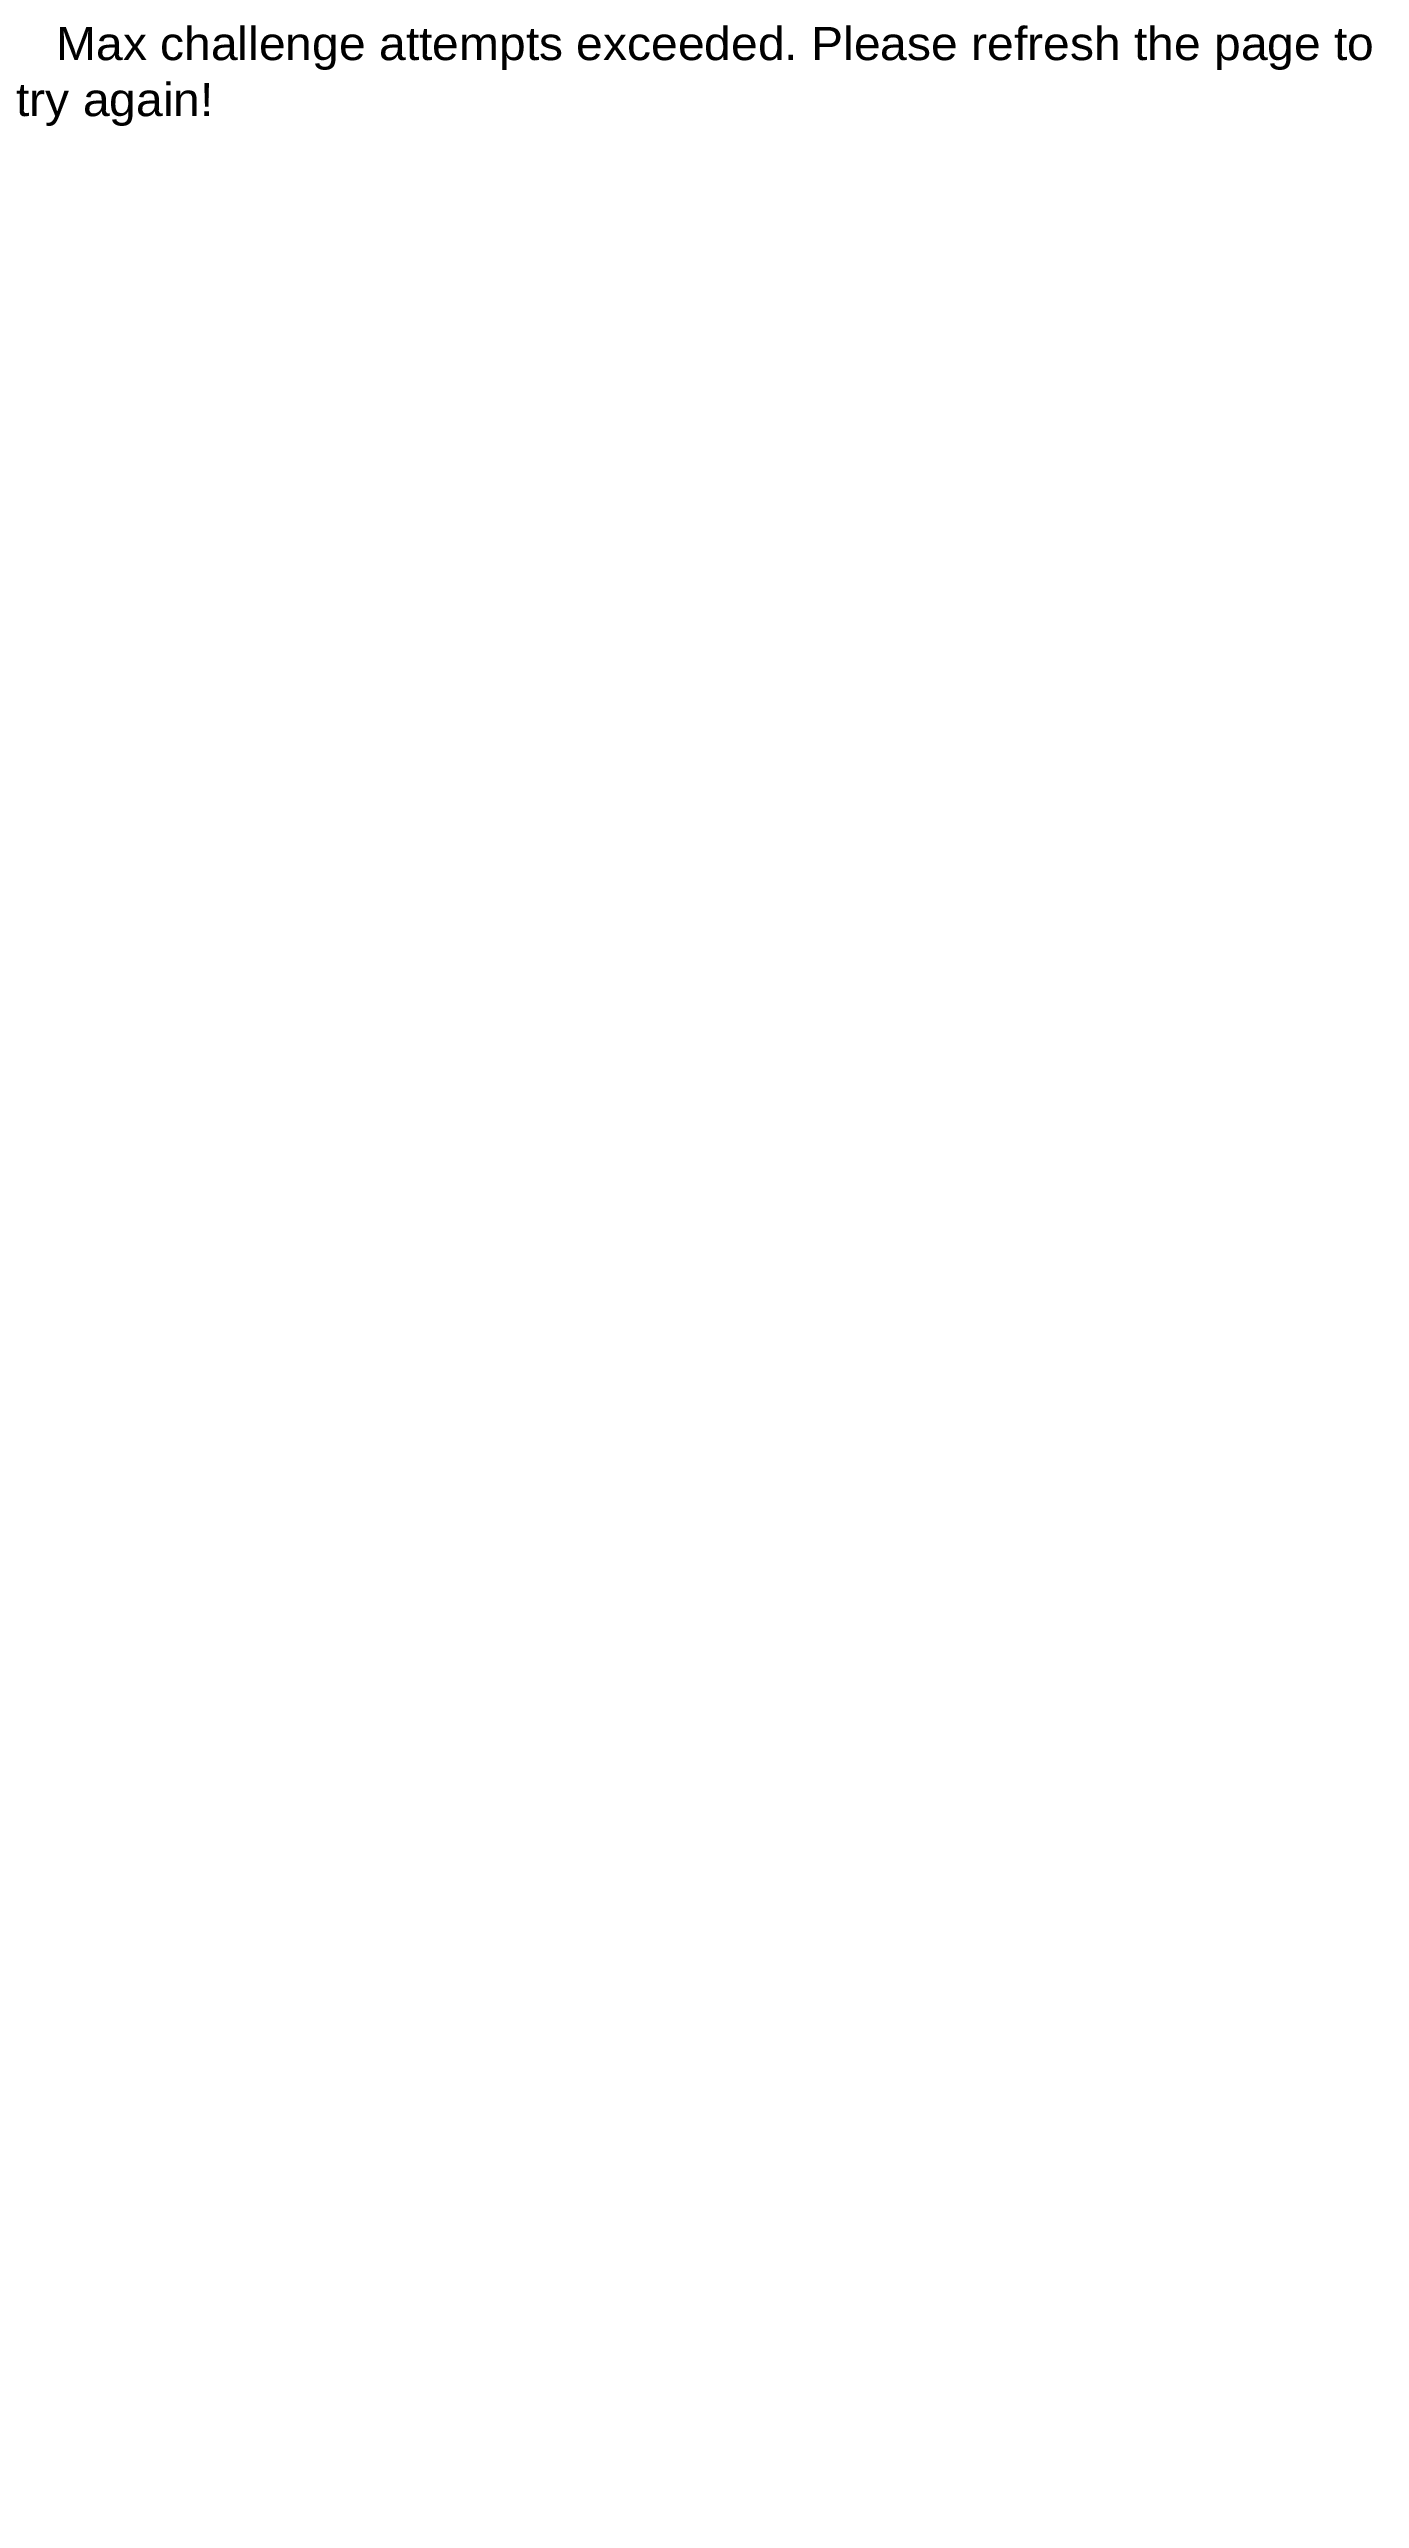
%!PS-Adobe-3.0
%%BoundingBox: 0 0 1409 2548
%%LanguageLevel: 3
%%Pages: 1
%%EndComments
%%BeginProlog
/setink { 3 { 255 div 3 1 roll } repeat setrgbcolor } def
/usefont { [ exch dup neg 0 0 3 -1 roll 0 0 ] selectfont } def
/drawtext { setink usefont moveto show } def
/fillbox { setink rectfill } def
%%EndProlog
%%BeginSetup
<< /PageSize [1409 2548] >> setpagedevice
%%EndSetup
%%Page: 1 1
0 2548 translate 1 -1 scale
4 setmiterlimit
0 0 1409 2548 255 255 255 fillbox
(Max challenge attempts exceeded. Please refresh the page to) 56 60 /LiberationSans-Regular 48 0 0 0 drawtext
(try again!) 16 116 /LiberationSans-Regular 48 0 0 0 drawtext
showpage
%%EOF
